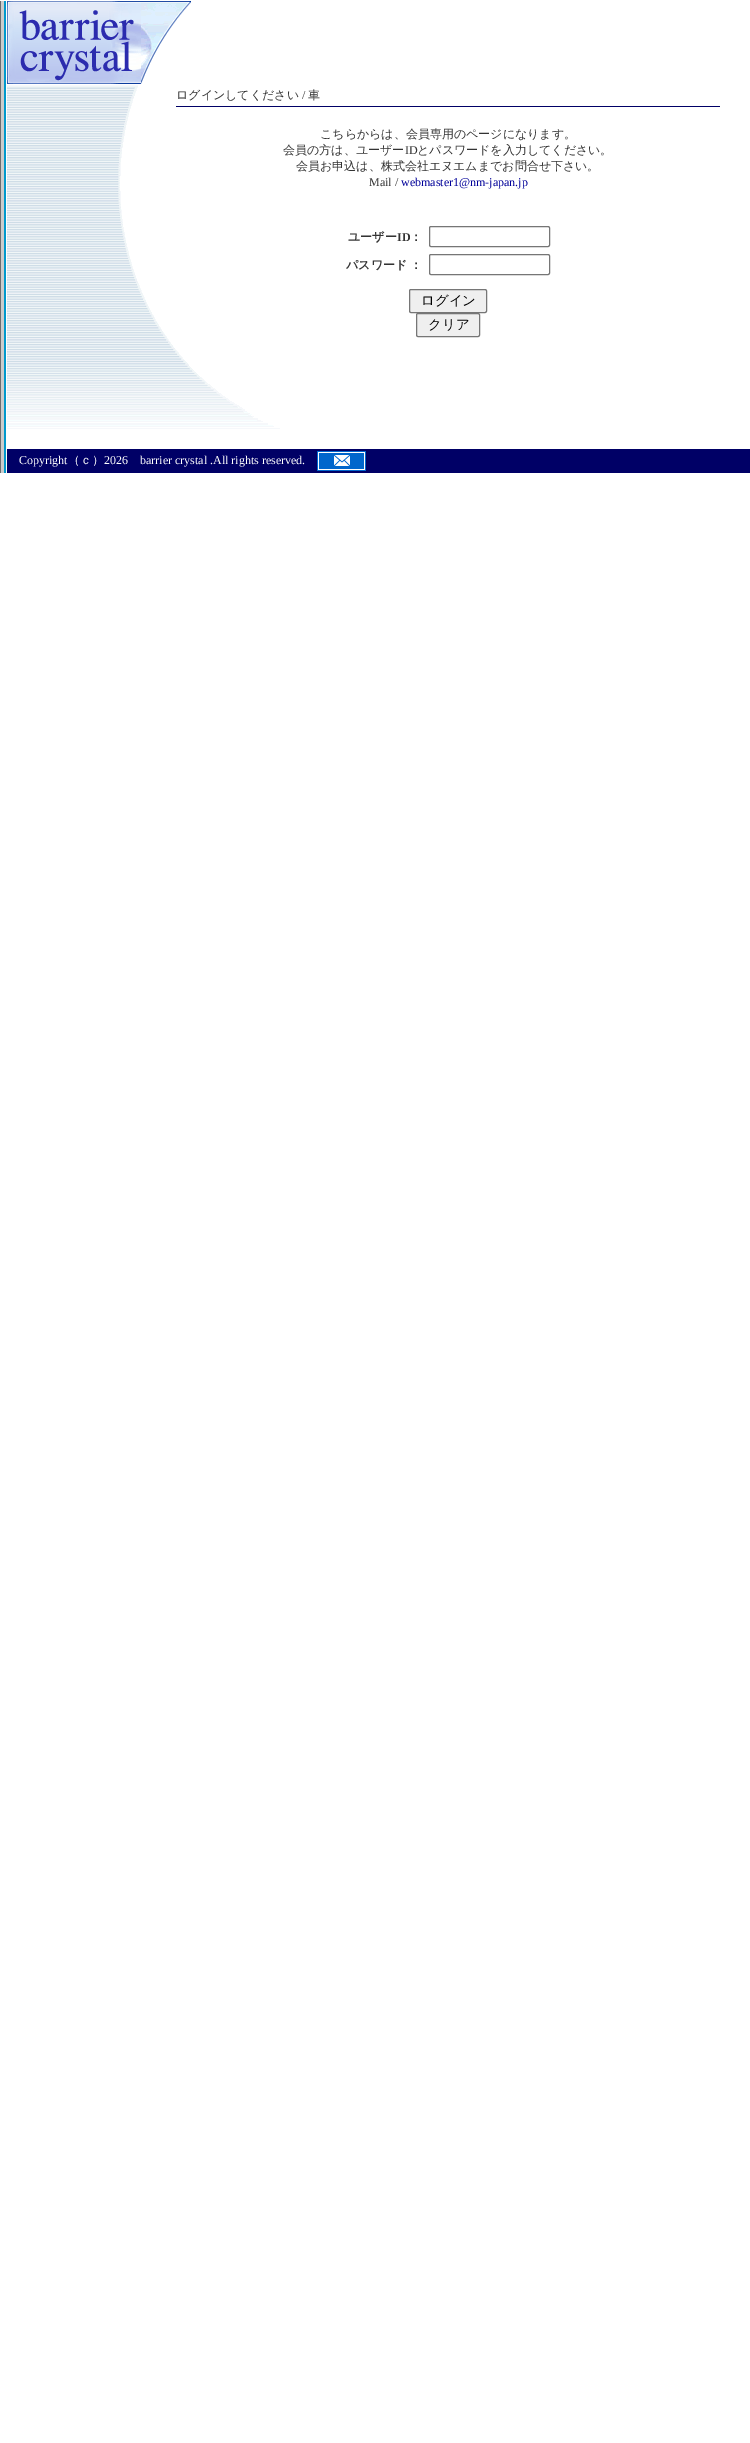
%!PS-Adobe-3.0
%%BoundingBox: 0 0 750 2443
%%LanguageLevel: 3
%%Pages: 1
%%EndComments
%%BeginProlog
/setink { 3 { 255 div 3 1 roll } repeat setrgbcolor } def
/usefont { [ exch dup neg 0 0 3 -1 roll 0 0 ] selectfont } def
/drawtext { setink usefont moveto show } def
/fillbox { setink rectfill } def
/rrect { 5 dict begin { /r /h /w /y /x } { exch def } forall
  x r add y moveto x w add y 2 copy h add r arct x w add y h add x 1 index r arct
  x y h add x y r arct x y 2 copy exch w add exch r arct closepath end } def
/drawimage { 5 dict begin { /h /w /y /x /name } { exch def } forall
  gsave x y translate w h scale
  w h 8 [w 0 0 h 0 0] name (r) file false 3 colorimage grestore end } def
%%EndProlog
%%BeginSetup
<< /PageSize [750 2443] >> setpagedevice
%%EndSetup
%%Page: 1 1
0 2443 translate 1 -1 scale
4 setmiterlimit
0 0 750 2443 255 255 255 fillbox
(assets/img1.rgb) 7 85 273 344 drawimage
(assets/img2.rgb) 0 1 6 83 drawimage
(assets/img3.rgb) 7 1 134 83 drawimage
(assets/img4.rgb) 141 1 50 83 drawimage
(assets/img5.rgb) 0 84 7 365 drawimage
(ログインしてください) 176 99 /WenQuanYiZenHei-Medium 12 51 51 51 drawtext
(/) 302 99 /LiberationSerif-Regular 12 51 51 51 drawtext
(車) 308 99 /WenQuanYiZenHei-Medium 12 51 51 51 drawtext
176 106 544 1 0 0 102 fillbox
(こちらからは、会員専用のページになります。) 320 138 /WenQuanYiZenHei-Medium 12 51 51 51 drawtext
(会員の方は、ユーザー) 283 154 /WenQuanYiZenHei-Medium 12 51 51 51 drawtext
(ID) 405 154 /LiberationSerif-Regular 12 51 51 51 drawtext
(とパスワードを入力してください。) 417 154 /WenQuanYiZenHei-Medium 12 51 51 51 drawtext
(会員お申込は、株式会社エヌエムまでお問合せ下さい。) 296 170 /WenQuanYiZenHei-Medium 12 51 51 51 drawtext
(Mail /) 369 186 /LiberationSerif-Regular 12 51 51 51 drawtext
(webmaster1@nm-japan.jp) 401 186 /LiberationSerif-Regular 12 0 0 153 drawtext
(ユーザー) 348 241 /WenQuanYiZenHei-Bold 12 51 51 51 drawtext
(ID) 397 241 /LiberationSerif-Bold 12 51 51 51 drawtext
(：) 410 241 /WenQuanYiZenHei-Bold 12 51 51 51 drawtext
118 118 118 setink
429.5 226.5 120 20 1.5 rrect stroke
51 51 51 setink
346 269 moveto -1 0 32 (パスワード ：) widthshow
118 118 118 setink
429.5 254.5 120 20 1.5 rrect stroke
239 239 239 setink
409.5 289.5 77 23 1.5 rrect gsave fill grestore
118 118 118 setink
stroke
(ログイン) 421 305 /WenQuanYiZenHei-Medium 13.5 0 0 0 drawtext
239 239 239 setink
416.5 313.5 63 23 1.5 rrect gsave fill grestore
118 118 118 setink
stroke
(クリア) 428 329 /WenQuanYiZenHei-Medium 13.5 0 0 0 drawtext
(assets/img6.rgb) 0 449 6 24 drawimage
7 449 743 24 0 0 102 fillbox
(Copyright) 19 464 /LiberationSerif-Regular 12 255 255 255 drawtext
(（ｃ）) 68 464 /WenQuanYiZenHei-Medium 12 255 255 255 drawtext
(2026) 104 464 /LiberationSerif-Regular 12 255 255 255 drawtext
(barrier crystal .All rights reserved.) 140 464 /LiberationSerif-Regular 12 255 255 255 drawtext
(assets/img7.rgb) 317 451 49 20 drawimage
showpage
%%EOF
